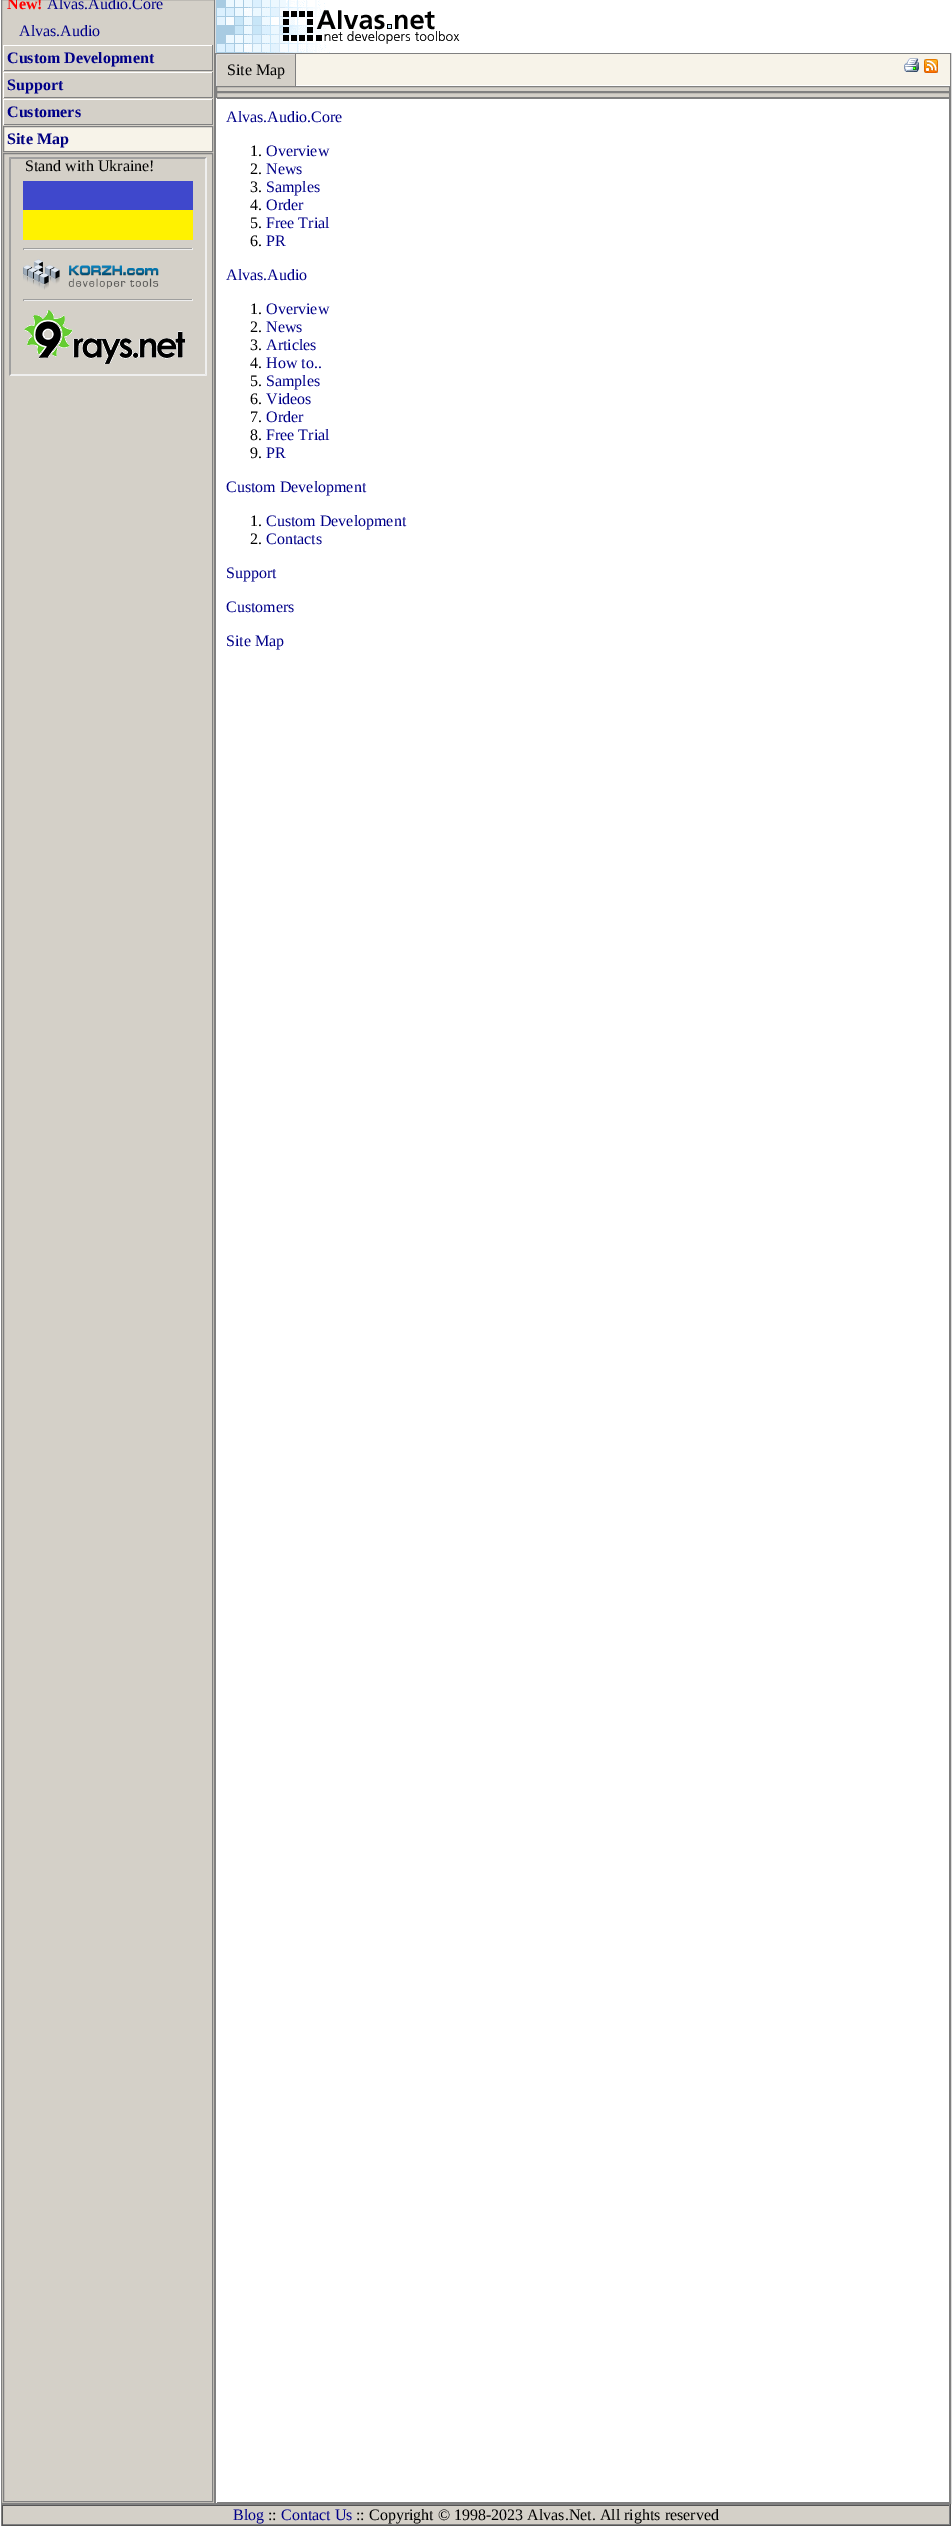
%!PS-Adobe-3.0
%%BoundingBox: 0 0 952 2539
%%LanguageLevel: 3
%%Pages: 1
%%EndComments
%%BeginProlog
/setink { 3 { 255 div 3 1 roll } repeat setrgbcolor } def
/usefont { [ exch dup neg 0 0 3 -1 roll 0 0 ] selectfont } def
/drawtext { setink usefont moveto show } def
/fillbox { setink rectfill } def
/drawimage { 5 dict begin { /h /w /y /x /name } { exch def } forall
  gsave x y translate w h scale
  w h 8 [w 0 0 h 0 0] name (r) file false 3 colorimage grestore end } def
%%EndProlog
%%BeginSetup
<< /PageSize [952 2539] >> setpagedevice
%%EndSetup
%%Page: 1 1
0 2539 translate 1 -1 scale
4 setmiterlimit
0 0 952 2539 255 255 255 fillbox
212 208 200 setink
1.5 -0.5 moveto 214.5 -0.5 lineto 214.5 2503.5 lineto 1.5 2503.5 lineto closepath gsave fill grestore
128 128 128 setink
stroke
(New!) 7 9 /LiberationSerif-Bold 16 255 0 0 drawtext
(Alvas.Audio.Core) 47 9 /LiberationSerif-Regular 16 0 0 136 drawtext
(Alvas.Audio) 19 36 /LiberationSerif-Regular 16 0 0 136 drawtext
3 45 210 1 255 255 255 fillbox
212 45 1 26 128 128 128 fillbox
3 70 210 1 128 128 128 fillbox
3 45 1 26 255 255 255 fillbox
(Custom Development) 7 63 /LiberationSerif-Bold 16 0 0 136 drawtext
3 72 210 1 255 255 255 fillbox
212 72 1 26 128 128 128 fillbox
3 97 210 1 128 128 128 fillbox
3 72 1 26 255 255 255 fillbox
(Support) 7 90 /LiberationSerif-Bold 16 0 0 136 drawtext
3 99 210 1 255 255 255 fillbox
212 99 1 26 128 128 128 fillbox
3 124 210 1 128 128 128 fillbox
3 99 1 26 255 255 255 fillbox
(Customers) 7 117 /LiberationSerif-Bold 16 0 0 136 drawtext
247 243 233 setink
3.5 126.5 moveto 212.5 126.5 lineto 212.5 151.5 lineto 3.5 151.5 lineto closepath gsave fill grestore
128 128 128 setink
stroke
(Site Map) 7 144 /LiberationSerif-Bold 16 0 0 128 drawtext
128 128 128 setink
3.5 153.5 209 2348 rectstroke
159 159 159 setink
9 157 moveto 207 157 lineto 205 159 lineto 11 159 lineto closepath fill
239 239 239 setink
207 157 moveto 207 376 lineto 205 374 lineto 205 159 lineto closepath fill
207 376 moveto 9 376 lineto 11 374 lineto 205 374 lineto closepath fill
159 159 159 setink
9 376 moveto 9 157 lineto 11 159 lineto 11 374 lineto closepath fill
(Stand with Ukraine!) 25 171 /LiberationSerif-Regular 16 0 0 0 drawtext
(assets/img1.rgb) 23 181 170 59 drawimage
23 248 170 1 159 159 159 fillbox
192 248 1 2 238 238 238 fillbox
23 249 170 1 238 238 238 fillbox
23 248 1 2 159 159 159 fillbox
(assets/img2.rgb) 23 259 136 31 drawimage
23 299 170 1 159 159 159 fillbox
192 299 1 2 238 238 238 fillbox
23 300 170 1 238 238 238 fillbox
23 299 1 2 159 159 159 fillbox
(assets/img3.rgb) 24 310 161 54 drawimage
(assets/img4.rgb) 216 0 244 53 drawimage
217 55 732 42 212 208 200 fillbox
128 128 128 setink
215.5 53.5 735 2450 rectstroke
(Site Map) 227 75 /LiberationSerif-Regular 16 0 0 0 drawtext
296 55 654 30 247 243 233 fillbox
295 54 655 1 247 243 233 fillbox
295 85 655 1 255 255 255 fillbox
295 54 1 32 128 128 128 fillbox
(assets/img5.rgb) 904 58 15 14 drawimage
(assets/img6.rgb) 924 59 14 14 drawimage
216.5 86.5 733 5 rectstroke
216.5 92.5 733 5 rectstroke
216 98 734 1 128 128 128 fillbox
949 98 1 2405 128 128 128 fillbox
216 2502 734 1 128 128 128 fillbox
216 98 1 2405 255 255 255 fillbox
(Alvas.Audio.Core) 226 122 /LiberationSerif-Regular 16 0 0 136 drawtext
(1.) 250 156 /LiberationSerif-Regular 16 0 0 0 drawtext
(Overview) 266 156 /LiberationSerif-Regular 16 0 0 136 drawtext
(2.) 250 174 /LiberationSerif-Regular 16 0 0 0 drawtext
(News) 266 174 /LiberationSerif-Regular 16 0 0 136 drawtext
(3.) 250 192 /LiberationSerif-Regular 16 0 0 0 drawtext
(Samples) 266 192 /LiberationSerif-Regular 16 0 0 136 drawtext
(4.) 250 210 /LiberationSerif-Regular 16 0 0 0 drawtext
(Order) 266 210 /LiberationSerif-Regular 16 0 0 136 drawtext
(5.) 250 228 /LiberationSerif-Regular 16 0 0 0 drawtext
(Free Trial) 266 228 /LiberationSerif-Regular 16 0 0 136 drawtext
(6.) 250 246 /LiberationSerif-Regular 16 0 0 0 drawtext
(PR) 266 246 /LiberationSerif-Regular 16 0 0 136 drawtext
(Alvas.Audio) 226 280 /LiberationSerif-Regular 16 0 0 136 drawtext
(1.) 250 314 /LiberationSerif-Regular 16 0 0 0 drawtext
(Overview) 266 314 /LiberationSerif-Regular 16 0 0 136 drawtext
(2.) 250 332 /LiberationSerif-Regular 16 0 0 0 drawtext
(News) 266 332 /LiberationSerif-Regular 16 0 0 136 drawtext
(3.) 250 350 /LiberationSerif-Regular 16 0 0 0 drawtext
(Articles) 266 350 /LiberationSerif-Regular 16 0 0 136 drawtext
(4.) 250 368 /LiberationSerif-Regular 16 0 0 0 drawtext
(How to..) 266 368 /LiberationSerif-Regular 16 0 0 136 drawtext
(5.) 250 386 /LiberationSerif-Regular 16 0 0 0 drawtext
(Samples) 266 386 /LiberationSerif-Regular 16 0 0 136 drawtext
(6.) 250 404 /LiberationSerif-Regular 16 0 0 0 drawtext
(Videos) 266 404 /LiberationSerif-Regular 16 0 0 136 drawtext
(7.) 250 422 /LiberationSerif-Regular 16 0 0 0 drawtext
(Order) 266 422 /LiberationSerif-Regular 16 0 0 136 drawtext
(8.) 250 440 /LiberationSerif-Regular 16 0 0 0 drawtext
(Free Trial) 266 440 /LiberationSerif-Regular 16 0 0 136 drawtext
(9.) 250 458 /LiberationSerif-Regular 16 0 0 0 drawtext
(PR) 266 458 /LiberationSerif-Regular 16 0 0 136 drawtext
(Custom Development) 226 492 /LiberationSerif-Regular 16 0 0 136 drawtext
(1.) 250 526 /LiberationSerif-Regular 16 0 0 0 drawtext
(Custom Development) 266 526 /LiberationSerif-Regular 16 0 0 136 drawtext
(2.) 250 544 /LiberationSerif-Regular 16 0 0 0 drawtext
(Contacts) 266 544 /LiberationSerif-Regular 16 0 0 136 drawtext
(Support) 226 578 /LiberationSerif-Regular 16 0 0 136 drawtext
(Customers) 226 612 /LiberationSerif-Regular 16 0 0 136 drawtext
(Site Map) 226 646 /LiberationSerif-Regular 16 0 0 136 drawtext
3 2506 946 18 212 208 200 fillbox
1 2504 950 1 128 128 128 fillbox
950 2504 1 22 85 85 85 fillbox
1 2525 950 1 85 85 85 fillbox
1 2504 1 22 128 128 128 fillbox
2 2505 948 1 85 85 85 fillbox
949 2505 1 20 128 128 128 fillbox
2 2524 948 1 128 128 128 fillbox
2 2505 1 20 85 85 85 fillbox
(Blog) 233 2520 /LiberationSerif-Regular 16 0 0 136 drawtext
(::) 268 2520 /LiberationSerif-Regular 16 0 0 0 drawtext
(Contact Us) 281 2520 /LiberationSerif-Regular 16 0 0 136 drawtext
(:: Copyright © 1998-2023 Alvas.Net. All rights reserved) 356 2520 /LiberationSerif-Regular 16 0 0 0 drawtext
showpage
%%EOF
